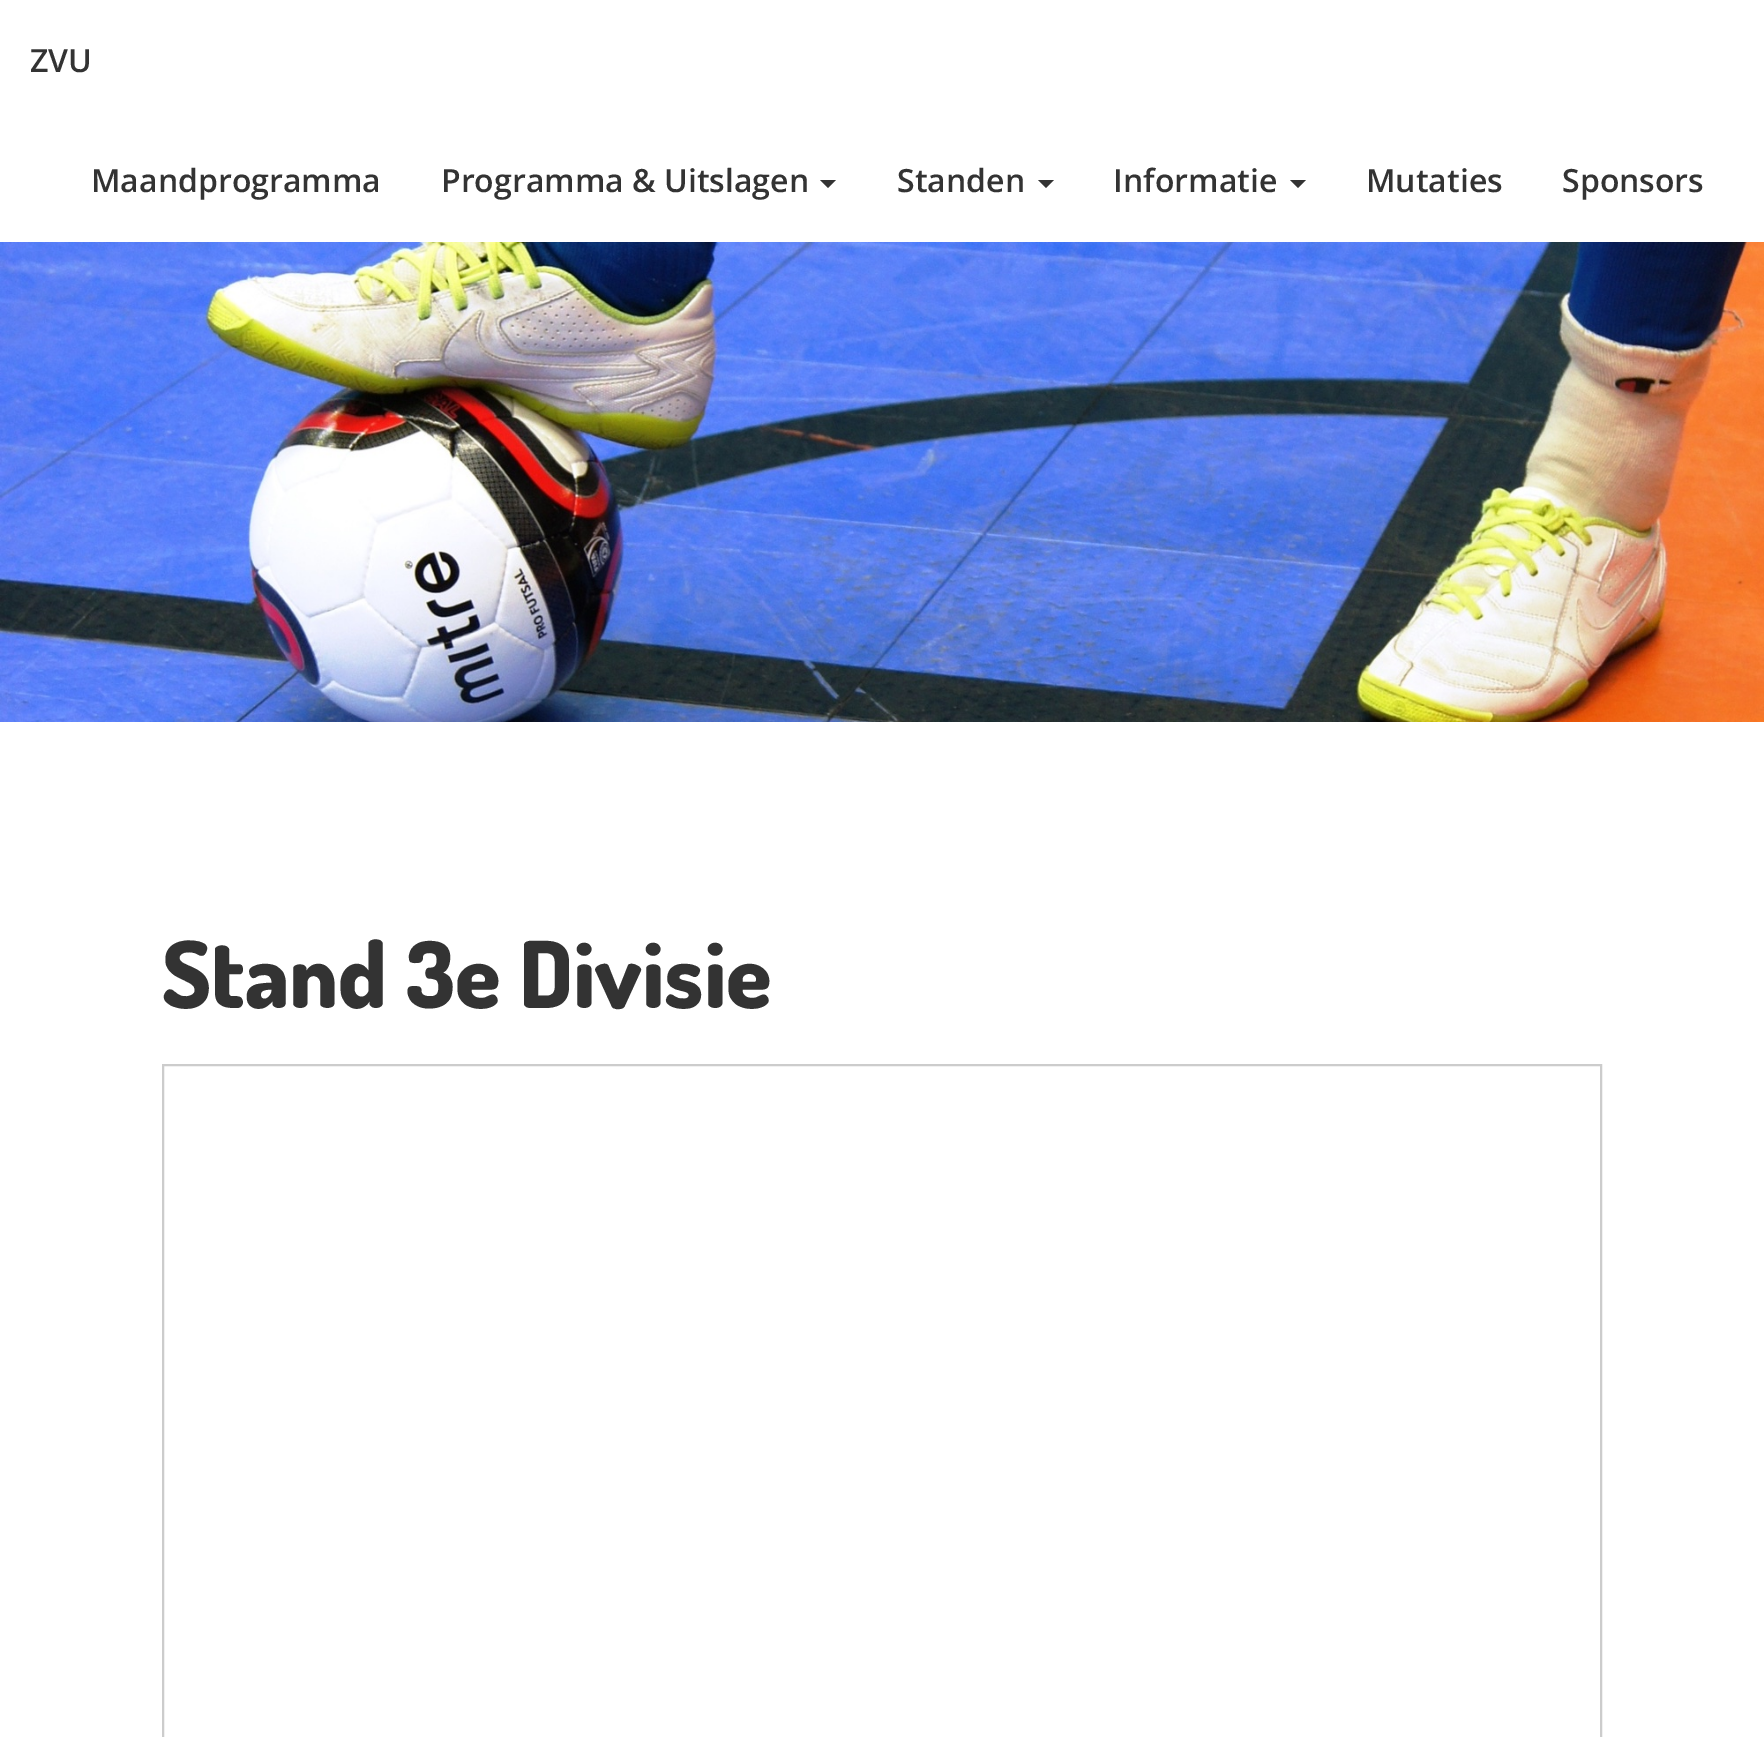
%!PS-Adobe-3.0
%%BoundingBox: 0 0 1764 1737
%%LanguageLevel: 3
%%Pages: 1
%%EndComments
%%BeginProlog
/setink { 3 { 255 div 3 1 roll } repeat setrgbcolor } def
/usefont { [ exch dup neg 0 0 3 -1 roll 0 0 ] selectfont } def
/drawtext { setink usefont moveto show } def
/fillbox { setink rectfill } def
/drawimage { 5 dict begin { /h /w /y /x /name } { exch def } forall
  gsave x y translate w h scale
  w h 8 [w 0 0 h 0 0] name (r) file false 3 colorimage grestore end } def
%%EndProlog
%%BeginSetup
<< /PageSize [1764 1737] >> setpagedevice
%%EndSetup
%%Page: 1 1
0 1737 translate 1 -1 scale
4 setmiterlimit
0 0 1764 1737 255 255 255 fillbox
(ZVU) 30 72 /OpenSans-SemiBold 32 51 51 51 drawtext
(Maandprogramma) 91 192 /OpenSans-SemiBold 32 51 51 51 drawtext
(Programma & Uitslagen) 441 192 /OpenSans-SemiBold 32 51 51 51 drawtext
820 180 moveto 836 180 lineto 828 188 lineto closepath fill
(Standen) 897 192 /OpenSans-SemiBold 32 51 51 51 drawtext
1038 180 moveto 1054 180 lineto 1046 188 lineto closepath fill
(Informatie) 1113 192 /OpenSans-SemiBold 32 51 51 51 drawtext
1290 180 moveto 1306 180 lineto 1298 188 lineto closepath fill
(Mutaties) 1366 192 /OpenSans-SemiBold 32 51 51 51 drawtext
(Sponsors) 1562 192 /OpenSans-SemiBold 32 51 51 51 drawtext
(assets/img1.rgb) 0 242 1764 480 drawimage
(Stand 3e Divisie) 162 1008 /Dosis-ExtraBold 92 51 51 51 drawtext
204 204 204 setink
2 setlinewidth
163 1065 1438 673 rectstroke
showpage
%%EOF
